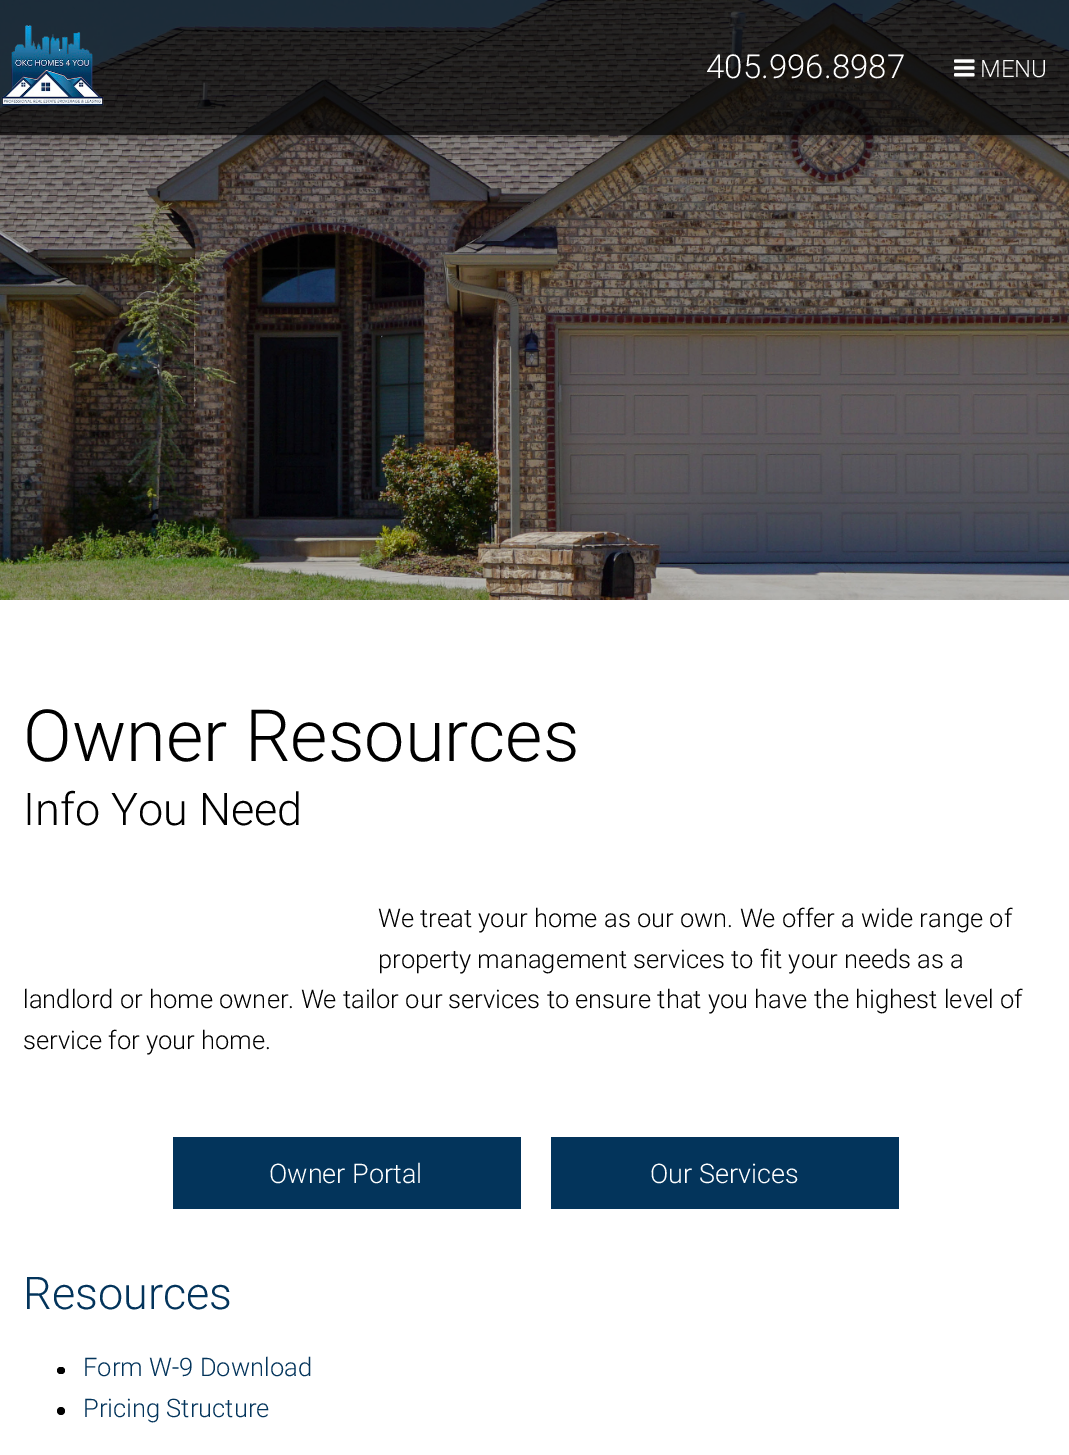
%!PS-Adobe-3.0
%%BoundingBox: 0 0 1069 1455
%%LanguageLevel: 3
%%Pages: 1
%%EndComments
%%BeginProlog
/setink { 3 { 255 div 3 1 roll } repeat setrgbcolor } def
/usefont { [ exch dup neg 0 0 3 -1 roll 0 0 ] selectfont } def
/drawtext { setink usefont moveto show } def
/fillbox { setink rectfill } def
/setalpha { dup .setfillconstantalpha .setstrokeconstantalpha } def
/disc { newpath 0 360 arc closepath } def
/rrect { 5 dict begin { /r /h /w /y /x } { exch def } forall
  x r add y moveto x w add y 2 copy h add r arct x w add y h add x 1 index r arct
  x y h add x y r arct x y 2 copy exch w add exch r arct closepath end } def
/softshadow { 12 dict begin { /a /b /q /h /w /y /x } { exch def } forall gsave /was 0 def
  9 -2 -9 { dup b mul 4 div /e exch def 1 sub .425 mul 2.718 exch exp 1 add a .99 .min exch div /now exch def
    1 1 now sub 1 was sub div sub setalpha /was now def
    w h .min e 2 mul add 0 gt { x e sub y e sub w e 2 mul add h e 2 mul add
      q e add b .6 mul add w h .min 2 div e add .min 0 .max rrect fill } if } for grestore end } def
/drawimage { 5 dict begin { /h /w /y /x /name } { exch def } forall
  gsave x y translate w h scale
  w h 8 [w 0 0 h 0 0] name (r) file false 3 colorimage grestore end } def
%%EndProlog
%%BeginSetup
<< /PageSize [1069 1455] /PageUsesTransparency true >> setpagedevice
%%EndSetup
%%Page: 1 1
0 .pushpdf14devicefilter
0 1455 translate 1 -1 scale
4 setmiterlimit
0 0 1069 1455 255 255 255 fillbox
(assets/img1.rgb) 0 0 1069 600 drawimage
gsave
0 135 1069 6 rectclip
0 0 0 setink
0 0 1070 135 0 4 0.35 softshadow
grestore
0.7 setalpha
0 0 1069 135 0 0 0 fillbox
1 setalpha
(assets/img2.rgb) 1 25 103 81 drawimage
(405.996.8987) 706 78 /Roboto-Light 33 255 255 255 drawtext
(assets/img3.rgb) 954 59 21 18 drawimage
(MENU) 980 77 /Roboto-Light 24 255 255 255 drawtext
(Owner Resources) 23 761 /Roboto-Light 72 0 0 0 drawtext
(Info You Need) 23 825 /Roboto-Light 45 0 0 0 drawtext
(We treat your home as our own. We offer a wide range of) 378 927 /Roboto-Light 25.5 0 0 0 drawtext
(property management services to fit your needs as a) 378 968 /Roboto-Light 25.5 0 0 0 drawtext
(landlord or home owner. We tailor our services to ensure that you have the highest level of) 23 1008 /Roboto-Light 25.5 0 0 0 drawtext
(service for your home.) 23 1049 /Roboto-Light 25.5 0 0 0 drawtext
173 1137 348 72 3 52 91 fillbox
(Owner Portal) 269 1183 /Roboto-Light 27 255 255 255 drawtext
551 1137 348 72 3 52 91 fillbox
(Our Services) 650 1183 /Roboto-Light 27 255 255 255 drawtext
(Resources) 23 1309 /Roboto-Light 45 3 52 91 drawtext
0 0 0 setink
57 1367 8 7 3.5 rrect fill
(Form W-9 Download) 83 1376 /Roboto-Light 25.5 3 52 91 drawtext
0 0 0 setink
61 1411 4 disc fill
(Pricing Structure) 83 1417 /Roboto-Light 25.5 3 52 91 drawtext
.poppdf14devicefilter showpage
%%EOF
